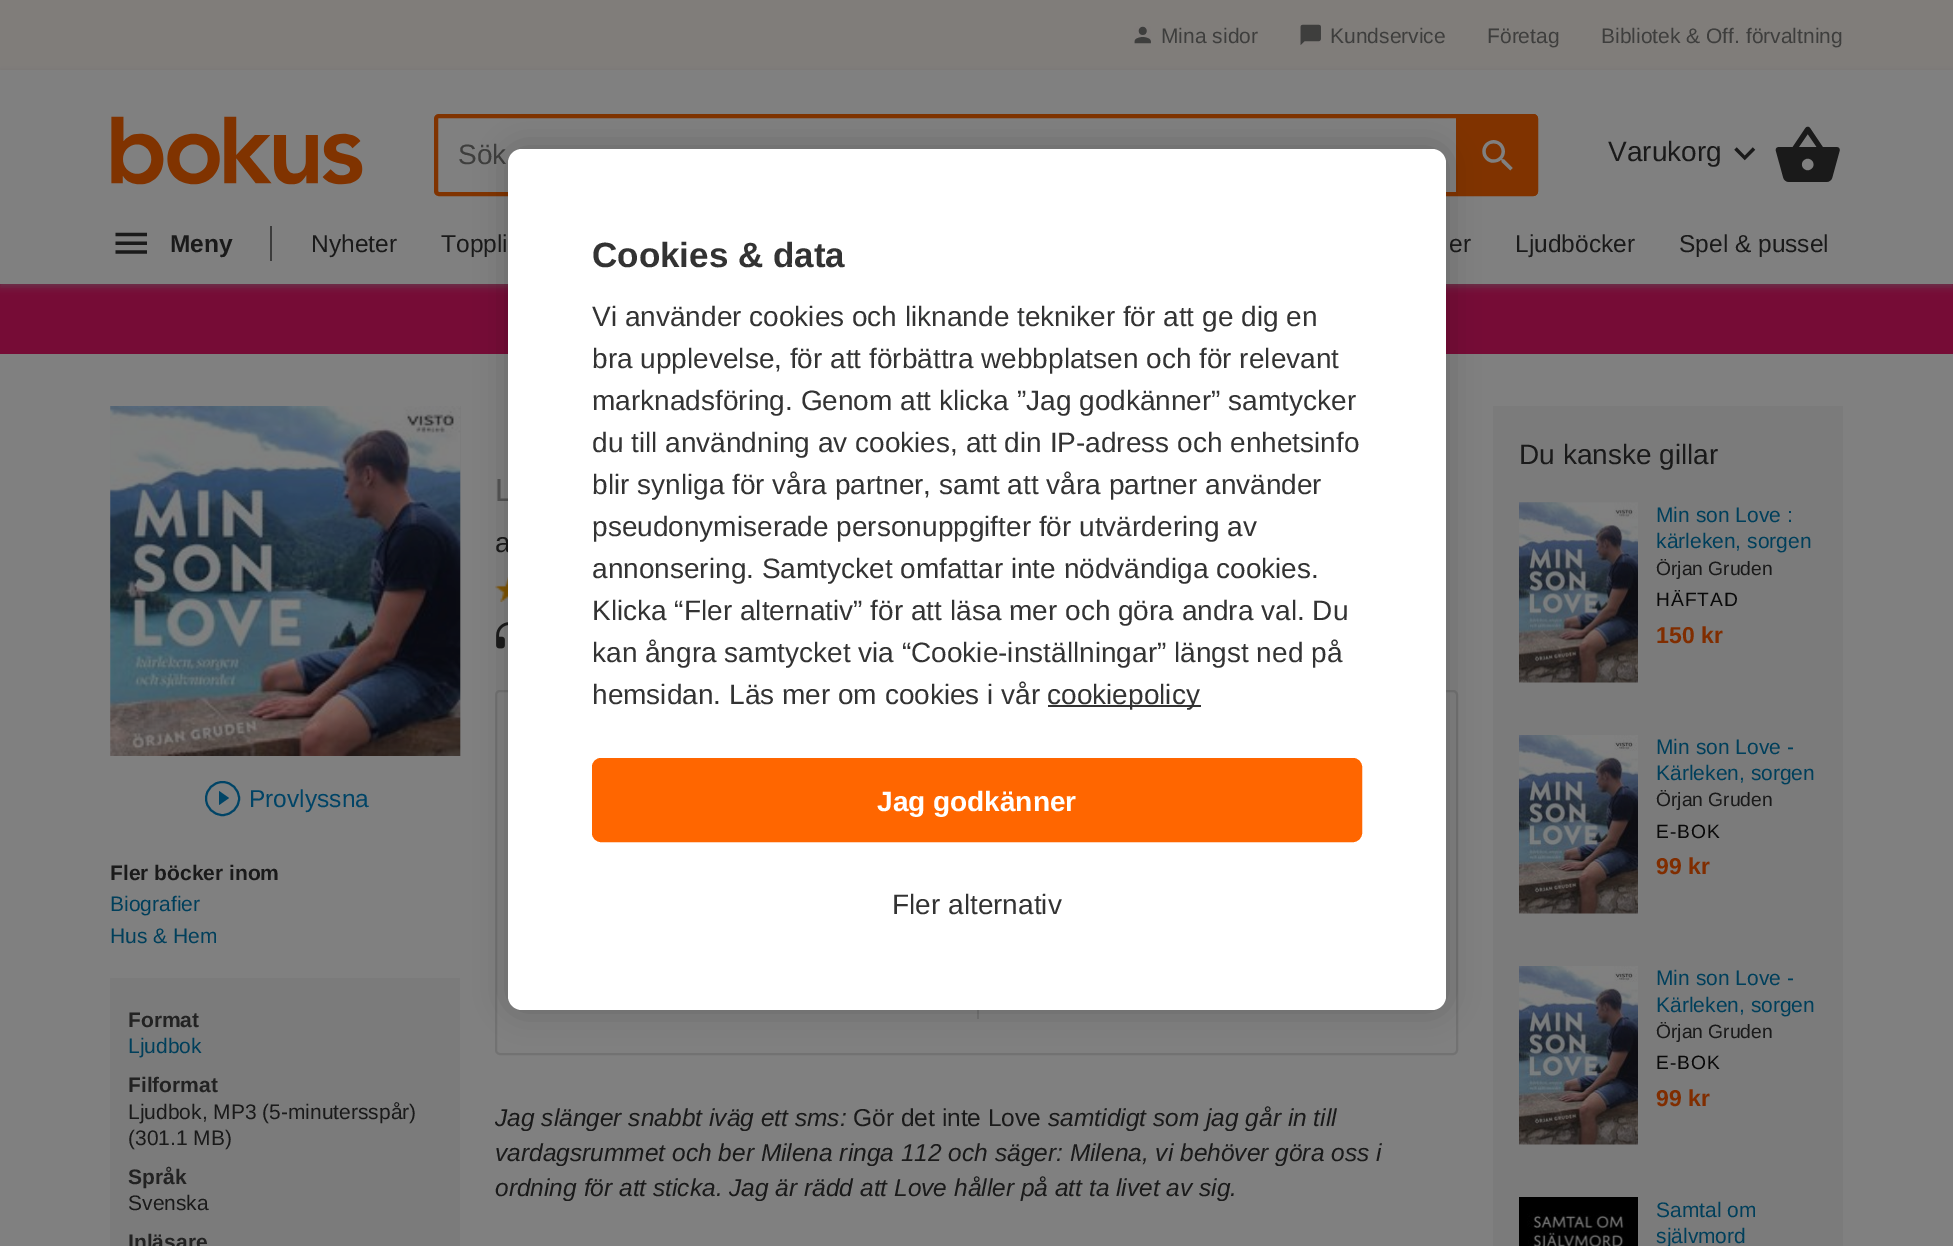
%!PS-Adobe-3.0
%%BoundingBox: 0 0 1953 1246
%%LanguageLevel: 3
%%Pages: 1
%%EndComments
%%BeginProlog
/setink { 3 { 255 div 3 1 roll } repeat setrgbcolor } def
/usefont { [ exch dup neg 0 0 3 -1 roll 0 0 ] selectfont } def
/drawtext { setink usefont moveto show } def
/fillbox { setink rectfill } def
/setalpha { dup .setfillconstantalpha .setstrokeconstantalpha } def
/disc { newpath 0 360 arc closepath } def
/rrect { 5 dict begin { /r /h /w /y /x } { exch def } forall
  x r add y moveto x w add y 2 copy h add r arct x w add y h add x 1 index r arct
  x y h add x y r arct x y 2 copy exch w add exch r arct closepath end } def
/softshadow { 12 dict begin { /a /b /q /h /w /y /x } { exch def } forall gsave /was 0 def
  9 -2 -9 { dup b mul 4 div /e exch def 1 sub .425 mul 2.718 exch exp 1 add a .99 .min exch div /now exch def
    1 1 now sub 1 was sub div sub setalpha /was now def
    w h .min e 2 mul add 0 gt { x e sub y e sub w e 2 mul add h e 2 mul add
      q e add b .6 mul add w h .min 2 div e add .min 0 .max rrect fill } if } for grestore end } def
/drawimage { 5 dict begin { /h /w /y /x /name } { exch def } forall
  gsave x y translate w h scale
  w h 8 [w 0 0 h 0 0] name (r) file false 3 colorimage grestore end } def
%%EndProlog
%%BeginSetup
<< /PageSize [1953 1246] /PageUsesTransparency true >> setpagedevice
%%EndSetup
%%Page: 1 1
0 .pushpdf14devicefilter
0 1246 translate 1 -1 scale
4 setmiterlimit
0 0 1953 1246 128 128 128 fillbox
0 0 1953 70 128 125 122 fillbox
(assets/img1.rgb) 1134 26 17 18 drawimage
(Mina sidor) 1161 43 /LiberationSans-Regular 21 62 62 61 drawtext
(assets/img2.rgb) 1300 24 21 21 drawimage
(Kundservice) 1330 43 /LiberationSans-Regular 21 62 62 61 drawtext
(Företag) 1487 43 /LiberationSans-Regular 21 62 62 61 drawtext
(Bibliotek & Off. förvaltning) 1601 43 /LiberationSans-Regular 21 62 62 61 drawtext
0 284 1953 70 118 12 54 fillbox
gsave
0 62 moveto 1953 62 lineto 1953 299 lineto 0 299 lineto closepath 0 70 moveto 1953 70 lineto 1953 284 lineto 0 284 lineto closepath eoclip newpath
93 93 93 setink
0 74 1953 213 0 3.5 0.5 softshadow
grestore
(assets/img3.rgb) 111 116 252 69 drawimage
128 51 0 setink
4 setlinewidth
436 116 1100 78 3 rrect stroke
(Sök) 458 164 /LiberationSans-Regular 28 62 62 61 drawtext
128 51 0 setink
1456 114 moveto 1533 114 lineto 1536 114 1538 116 1538 119 curveto 1538 191 lineto 1538 194 1536 196 1533 196 curveto 1456 196 lineto closepath fill
(assets/img4.rgb) 1482 140 31 31 drawimage
(Varukorg) 1608 161 /LiberationSans-Regular 28 26 26 26 drawtext
(assets/img5.rgb) 1734 147 22 14 drawimage
(assets/img6.rgb) 1775 126 65 56 drawimage
270 226 2 35 60 60 60 fillbox
(assets/img7.rgb) 115 232 32 22 drawimage
(Meny) 170 252 /LiberationSans-Bold 24.5 26 26 26 drawtext
(Nyheter) 311 252 /LiberationSans-Regular 24.5 26 26 26 drawtext
(Toppli) 441 252 /LiberationSans-Regular 24.5 26 26 26 drawtext
(er) 1449 252 /LiberationSans-Regular 24.5 26 26 26 drawtext
(Ljudböcker) 1515 252 /LiberationSans-Regular 24.5 26 26 26 drawtext
(Spel & pussel) 1679 252 /LiberationSans-Regular 24.5 26 26 26 drawtext
(assets/img8.rgb) 110 406 351 350 drawimage
0 68 102 setink
219 805 moveto 219 791 lineto 229 798 lineto closepath fill
2 setlinewidth
222.5 798.5 16.5 disc stroke
(Provlyssna) 249 807 /LiberationSans-Regular 24.5 0 68 102 drawtext
(Fler böcker inom) 110 880 /LiberationSans-Bold 21 26 26 26 drawtext
(Biografier) 110 911 /LiberationSans-Regular 21 0 63 91 drawtext
(Hus & Hem) 110 943 /LiberationSans-Regular 21 0 63 91 drawtext
110 978 350 268 123 123 123 fillbox
(Format) 128 1027 /LiberationSans-Bold 21 34 34 34 drawtext
(Ljudbok) 128 1053 /LiberationSans-Regular 21 0 63 91 drawtext
(Filformat) 128 1092 /LiberationSans-Bold 21 34 34 34 drawtext
(Ljudbok, MP3 \(5-minutersspår\)) 128 1119 /LiberationSans-Regular 21 26 26 26 drawtext
(\(301.1 MB\)) 128 1145 /LiberationSans-Regular 21 26 26 26 drawtext
(Språk) 128 1184 /LiberationSans-Bold 21 34 34 34 drawtext
(Svenska) 128 1210 /LiberationSans-Regular 21 26 26 26 drawtext
(Inläsare) 128 1249 /LiberationSans-Bold 21 34 34 34 drawtext
(L) 495 501 /LiberationSans-Regular 32 85 85 85 drawtext
(a) 495 552 /LiberationSans-Regular 28 26 26 26 drawtext
(assets/img9.rgb) 495 577 13 25 drawimage
(assets/img10.rgb) 496 622 12 27 drawimage
114 114 114 setink
496 691 961 363 4 rrect stroke
977 1010 2 9 114 114 114 fillbox
(Jag slänger snabbt iväg ett sms:) 495 1126 /LiberationSans-Italic 24.5 26 26 26 drawtext
(Gör det inte Love) 853 1126 /LiberationSans-Regular 24.5 26 26 26 drawtext
(samtidigt som jag går in till) 1048 1126 /LiberationSans-Italic 24.5 26 26 26 drawtext
(vardagsrummet och ber Milena ringa 112 och säger: Milena, vi behöver göra oss i) 495 1161 /LiberationSans-Italic 24.5 26 26 26 drawtext
(ordning för att sticka. Jag är rädd att Love håller på att ta livet av sig.) 495 1196 /LiberationSans-Italic 24.5 26 26 26 drawtext
1493 406 350 840 123 123 123 fillbox
(Du kanske gillar) 1519 464 /LiberationSans-Regular 28 26 26 26 drawtext
(assets/img11.rgb) 1519 502 119 181 drawimage
(Min son Love :) 1656 522 /LiberationSans-Regular 21 0 63 91 drawtext
(kärleken, sorgen) 1656 548 /LiberationSans-Regular 21 0 63 91 drawtext
(Örjan Gruden) 1656 575 /LiberationSans-Regular 19.25 26 26 26 drawtext
9 9 9 setink
1656 606 moveto 1 0 (HÄFTAD) ashow
(150 kr) 1656 643 /LiberationSans-Bold 23 128 45 0 drawtext
(assets/img12.rgb) 1519 735 119 179 drawimage
(Min son Love -) 1656 754 /LiberationSans-Regular 21 0 63 91 drawtext
(Kärleken, sorgen) 1656 780 /LiberationSans-Regular 21 0 63 91 drawtext
(Örjan Gruden) 1656 806 /LiberationSans-Regular 19.25 26 26 26 drawtext
9 9 9 setink
1656 838 moveto 1 0 (E-BOK) ashow
(99 kr) 1656 874 /LiberationSans-Bold 23 128 45 0 drawtext
(assets/img12.rgb) 1519 966 119 179 drawimage
(Min son Love -) 1656 985 /LiberationSans-Regular 21 0 63 91 drawtext
(Kärleken, sorgen) 1656 1012 /LiberationSans-Regular 21 0 63 91 drawtext
(Örjan Gruden) 1656 1038 /LiberationSans-Regular 19.25 26 26 26 drawtext
9 9 9 setink
1656 1069 moveto 1 0 (E-BOK) ashow
(99 kr) 1656 1106 /LiberationSans-Bold 23 128 45 0 drawtext
(assets/img13.rgb) 1519 1197 119 49 drawimage
(Samtal om) 1656 1217 /LiberationSans-Regular 21 0 63 91 drawtext
(självmord) 1656 1243 /LiberationSans-Regular 21 0 63 91 drawtext
0 0 0 setink
508 149 938 861 14 16 0.2 softshadow
255 255 255 setink
508 149 938 861 14 rrect fill
(Cookies & data) 592 267 /LiberationSans-Bold 35 51 51 51 drawtext
(Vi använder cookies och liknande tekniker för att ge dig en) 592 326 /LiberationSans-Regular 28 51 51 51 drawtext
(bra upplevelse, för att förbättra webbplatsen och för relevant) 592 368 /LiberationSans-Regular 28 51 51 51 drawtext
(marknadsföring. Genom att klicka ”Jag godkänner” samtycker) 592 410 /LiberationSans-Regular 28 51 51 51 drawtext
(du till användning av cookies, att din IP-adress och enhetsinfo) 592 452 /LiberationSans-Regular 28 51 51 51 drawtext
(blir synliga för våra partner, samt att våra partner använder) 592 494 /LiberationSans-Regular 28 51 51 51 drawtext
(pseudonymiserade personuppgifter för utvärdering av) 592 536 /LiberationSans-Regular 28 51 51 51 drawtext
(annonsering. Samtycket omfattar inte nödvändiga cookies.) 592 578 /LiberationSans-Regular 28 51 51 51 drawtext
(Klicka “Fler alternativ” för att läsa mer och göra andra val. Du) 592 620 /LiberationSans-Regular 28 51 51 51 drawtext
(kan ångra samtycket via “Cookie-inställningar” längst ned på) 592 662 /LiberationSans-Regular 28 51 51 51 drawtext
(hemsidan. Läs mer om cookies i vår) 592 704 /LiberationSans-Regular 28 51 51 51 drawtext
1048 705 153 2 51 51 51 fillbox
(cookiepolicy) 1047 704 /LiberationSans-Regular 28 51 51 51 drawtext
255 102 0 setink
593 759 768 82 8 rrect gsave fill grestore
stroke
(Jag godkänner) 877 811 /LiberationSans-Bold 28 255 255 255 drawtext
(Fler alternativ) 892 914 /LiberationSans-Regular 28 51 51 51 drawtext
.poppdf14devicefilter showpage
%%EOF
